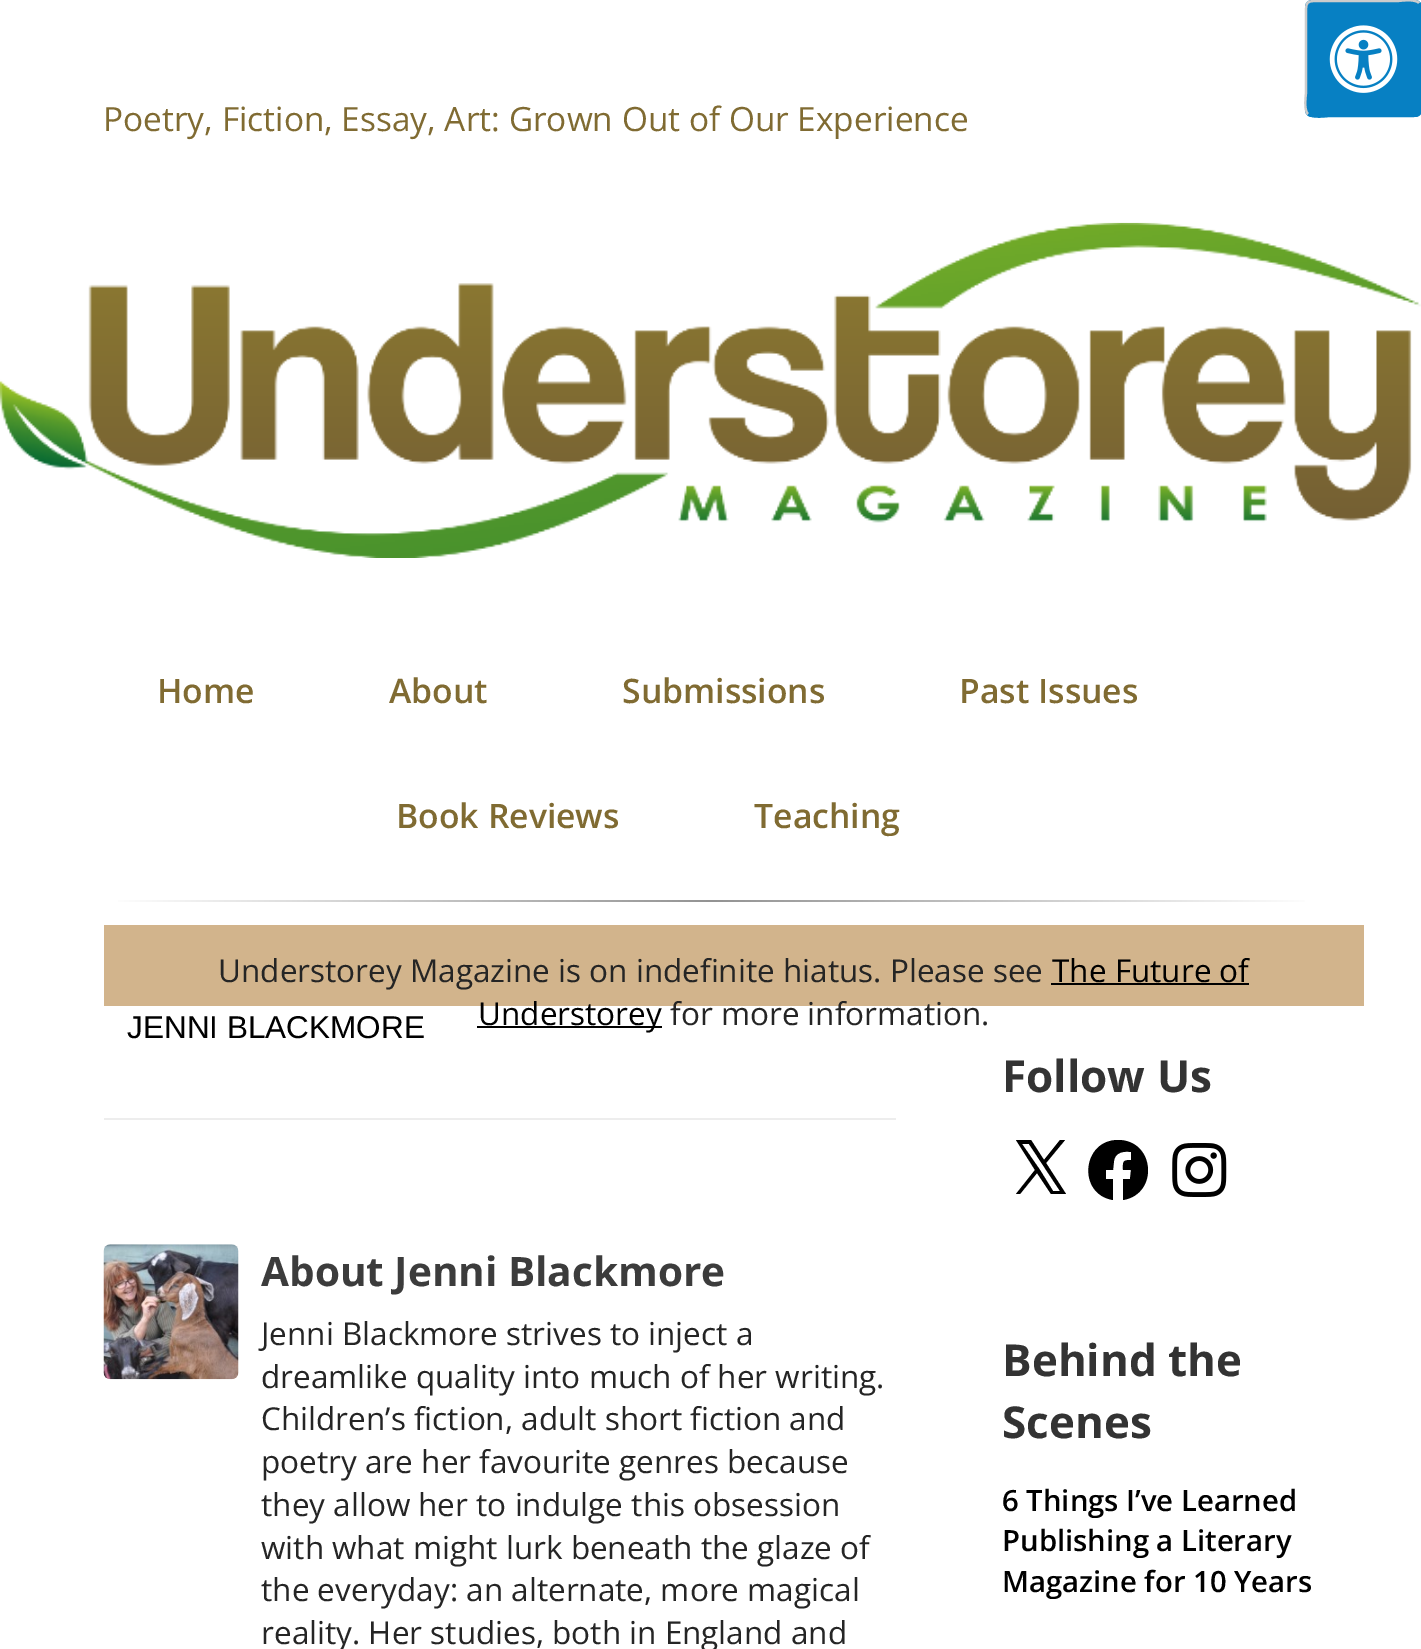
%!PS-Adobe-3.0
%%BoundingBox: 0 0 1421 1649
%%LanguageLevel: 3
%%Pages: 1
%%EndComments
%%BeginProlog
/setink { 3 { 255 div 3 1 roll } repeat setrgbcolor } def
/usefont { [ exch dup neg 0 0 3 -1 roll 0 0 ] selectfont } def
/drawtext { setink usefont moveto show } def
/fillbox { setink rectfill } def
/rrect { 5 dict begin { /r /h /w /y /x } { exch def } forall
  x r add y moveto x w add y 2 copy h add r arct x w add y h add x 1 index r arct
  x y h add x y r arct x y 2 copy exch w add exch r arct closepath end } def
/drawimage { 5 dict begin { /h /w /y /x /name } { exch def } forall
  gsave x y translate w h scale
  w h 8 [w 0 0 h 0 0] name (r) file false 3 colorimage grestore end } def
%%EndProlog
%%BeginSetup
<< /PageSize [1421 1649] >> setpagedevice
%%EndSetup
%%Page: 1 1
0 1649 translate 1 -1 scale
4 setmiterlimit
0 0 1421 1649 255 255 255 fillbox
7 128 195 setink
1305 0 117 117 7 rrect fill
2.2 setlinewidth
1419 3 moveto 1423.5 7 1421 22.5 1421 24 curveto 1421 93 lineto 1421 119 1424 116 1398 116 curveto 1329 116 lineto 1327.5 116 1312 118.5 1308 114 curveto stroke
204 204 204 setink
1308 114 moveto 1303.5 110 1306 94.5 1306 93 curveto 1306 24 lineto 1306 -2 1303 1 1329 1 curveto 1398 1 lineto 1399.5 1 1415 -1.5 1419 3 curveto stroke
(assets/img1.rgb) 1329 25 69 68 drawimage
(Poetry, Fiction, Essay, Art: Grown Out of Our Experience) 103 131 /OpenSans-Regular 33.4 128 107 50 drawtext
(assets/img2.rgb) 0 222 1421 336 drawimage
(Home) 157 703 /OpenSans-SemiBold 33.75 128 107 50 drawtext
(About) 389 703 /OpenSans-SemiBold 33.75 128 107 50 drawtext
(Submissions) 622 703 /OpenSans-SemiBold 33.75 128 107 50 drawtext
(Past Issues) 959 703 /OpenSans-SemiBold 33.75 128 107 50 drawtext
(Book Reviews) 396 828 /OpenSans-SemiBold 33.75 128 107 50 drawtext
(Teaching) 754 828 /OpenSans-SemiBold 33.75 128 107 50 drawtext
gsave 118 900 moveto 1305 900 lineto 1305 902 lineto 118 902 lineto closepath clip newpath
<< /ShadingType 2 /ColorSpace /DeviceRGB /Coords [104 901 1319 901] /Extend [true true] /Function << /FunctionType 3 /Domain [0 1] /Functions [<< /FunctionType 2 /Domain [0 1] /C0 [1 1 1] /C1 [0.576 0.576 0.576] /N 1 >> << /FunctionType 2 /Domain [0 1] /C0 [0.576 0.576 0.576] /C1 [1 1 1] /N 1 >>] /Bounds [0.5] /Encode [0 1 0 1] >> >> shfill grestore
104 925 1260 81 210 180 140 fillbox
(Understorey Magazine is on indefinite hiatus. Please see) 218 982 /OpenSans-Regular 31.5 37 37 37 drawtext
(The Future of) 1052 982 /OpenSans-Regular 31.5 0 0 0 drawtext
1051 983 198 2 0 0 0 fillbox
477 1026 185 2 0 0 0 fillbox
(Understorey) 478 1025 /OpenSans-Regular 31.5 0 0 0 drawtext
(for more information.) 670 1025 /OpenSans-Regular 31.5 37 37 37 drawtext
104 1118 792 2 237 237 237 fillbox
(JENNI BLACKMORE) 127 1038 /LiberationSans-Regular 31.5 0 0 0 drawtext
(assets/img3.rgb) 103 1244 136 136 drawimage
(About Jenni Blackmore) 261 1286 /OpenSans-Bold 40.5 60 60 60 drawtext
(Jenni Blackmore strives to inject a) 261 1345 /OpenSans-Regular 31.5 37 37 37 drawtext
(dreamlike quality into much of her writing.) 261 1388 /OpenSans-Regular 31.5 37 37 37 drawtext
(Children’s fiction, adult short fiction and) 261 1430 /OpenSans-Regular 31.5 37 37 37 drawtext
(poetry are her favourite genres because) 261 1473 /OpenSans-Regular 31.5 37 37 37 drawtext
(they allow her to indulge this obsession) 261 1516 /OpenSans-Regular 31.5 37 37 37 drawtext
(with what might lurk beneath the glaze of) 261 1559 /OpenSans-Regular 31.5 37 37 37 drawtext
(the everyday: an alternate, more magical) 261 1601 /OpenSans-Regular 31.5 37 37 37 drawtext
(reality. Her studies, both in England and) 261 1644 /OpenSans-Regular 31.5 37 37 37 drawtext
(Follow Us) 1002 1092 /OpenSans-Bold 44 51 51 51 drawtext
0 0 0 setink
1046 1163 moveto 1065 1140 lineto 1060 1140 lineto 1044 1160 lineto 1031 1140 lineto 1016 1140 lineto 1035 1170 lineto 1016 1194 lineto 1020 1194 lineto 1037 1173 lineto 1051 1194 lineto 1066 1194 lineto closepath 1040 1170 moveto 1022 1144 lineto 1029 1144 lineto 1060 1191 lineto 1053 1191 lineto closepath fill
1118 1140 moveto 1082 1140 1077 1194 1113 1200 curveto 1113 1179 lineto 1106 1179 lineto 1106 1170 lineto 1113 1170 lineto 1114 1161 lineto 1115 1152 1124 1151 1131 1152 curveto 1131 1160 lineto 1122 1160 1123 1162 1123 1170 curveto 1131 1170 lineto 1130 1179 lineto 1123 1179 lineto 1123 1200 lineto 1159 1194 1155 1140 1118 1140 curveto closepath fill
(assets/img4.rgb) 1172 1143 55 54 drawimage
(Behind the) 1002 1376 /OpenSans-Bold 44 51 51 51 drawtext
(Scenes) 1002 1438 /OpenSans-Bold 44 51 51 51 drawtext
(6 Things I’ve Learned) 1002 1511 /OpenSans-SemiBold 29.25 0 0 0 drawtext
(Publishing a Literary) 1002 1551 /OpenSans-SemiBold 29.25 0 0 0 drawtext
(Magazine for 10 Years) 1002 1592 /OpenSans-SemiBold 29.25 0 0 0 drawtext
showpage
%%EOF
